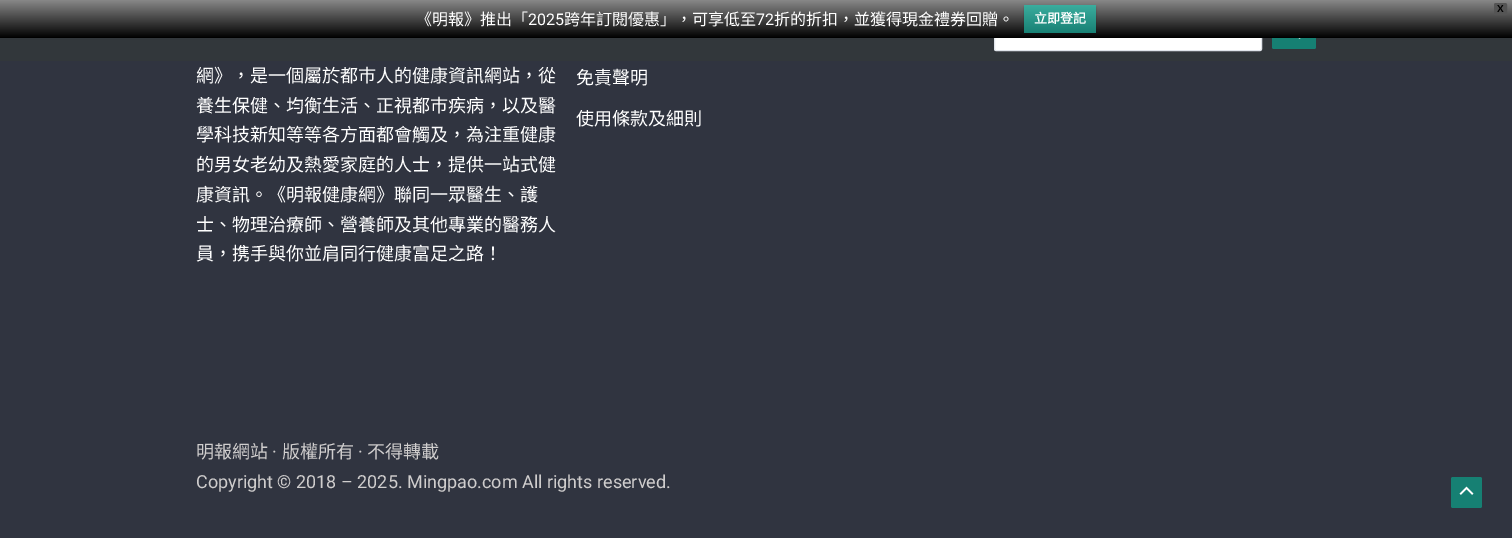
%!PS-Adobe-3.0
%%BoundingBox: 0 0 1512 538
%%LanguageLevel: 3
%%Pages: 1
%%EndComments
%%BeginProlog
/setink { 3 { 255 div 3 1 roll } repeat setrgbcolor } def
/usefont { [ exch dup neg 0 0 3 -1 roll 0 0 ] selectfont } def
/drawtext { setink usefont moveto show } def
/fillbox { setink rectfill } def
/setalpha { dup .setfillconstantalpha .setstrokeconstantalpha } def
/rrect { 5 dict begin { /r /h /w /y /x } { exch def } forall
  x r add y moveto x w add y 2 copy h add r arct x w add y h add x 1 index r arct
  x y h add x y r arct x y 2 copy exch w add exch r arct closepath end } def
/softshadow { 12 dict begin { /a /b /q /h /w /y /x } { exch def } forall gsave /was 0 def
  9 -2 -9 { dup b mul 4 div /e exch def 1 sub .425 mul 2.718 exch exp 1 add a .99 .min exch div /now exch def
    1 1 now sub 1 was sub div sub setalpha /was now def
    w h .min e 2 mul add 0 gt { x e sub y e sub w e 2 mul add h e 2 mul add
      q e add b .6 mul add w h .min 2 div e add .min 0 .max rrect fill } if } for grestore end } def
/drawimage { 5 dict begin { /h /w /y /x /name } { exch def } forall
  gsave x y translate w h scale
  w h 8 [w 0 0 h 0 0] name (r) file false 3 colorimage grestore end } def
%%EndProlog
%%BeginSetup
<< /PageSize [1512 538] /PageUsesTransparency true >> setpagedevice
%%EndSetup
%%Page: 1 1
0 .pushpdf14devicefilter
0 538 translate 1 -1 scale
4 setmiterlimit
0 0 1512 538 48 52 64 fillbox
0 38 1512 23 50 55 59 fillbox
255 255 255 setink
994.5 13.5 267 37 1.5 rrect gsave fill grestore
225 229 235 setink
stroke
22 128 115 setink
1272 15 44 34 2 rrect fill
gsave 0 0 moveto 1512 0 lineto 1512 38 lineto 0 38 lineto closepath clip newpath
<< /ShadingType 2 /ColorSpace /DeviceRGB /Coords [756 0 756 38] /Extend [true true] /Function << /FunctionType 2 /Domain [0 1] /C0 [0.533 0.533 0.533] /C1 [0 0 0] /N 1 >> >> shfill grestore
85 85 85 setink
1494.5 3.5 12 11 1.5 rrect gsave fill grestore
stroke
(X) 1497 12 /LiberationSans-Bold 10 0 0 0 drawtext
(《明報》推出「) 416 25 /NotoSansCJKHK-Regular 16 255 255 255 drawtext
(2025) 528 25 /Roboto-Regular 16 255 255 255 drawtext
(跨年訂閱優惠」，可享低至) 564 25 /NotoSansCJKHK-Regular 16 255 255 255 drawtext
(72) 756 25 /Roboto-Regular 16 255 255 255 drawtext
(折的折扣，並獲得現金禮券回贈。) 774 25 /NotoSansCJKHK-Regular 16 255 255 255 drawtext
0 0 0 setink
1024 6 72 28 2 1 0.2 softshadow
gsave 1024 5 72 28 2 rrect clip newpath
<< /ShadingType 2 /ColorSpace /DeviceRGB /Coords [1060 5 1060 33] /Extend [true true] /Function << /FunctionType 2 /Domain [0 1] /C0 [0.231 0.678 0.62] /C1 [0.094 0.502 0.455] /N 1 >> >> shfill grestore
(立即登記) 1034 23 /NotoSansCJKHK-Bold 13 255 255 255 drawtext
(assets/img1.rgb) 1298 38 3 1 drawimage
(網》，是一個屬於都巿人的健康資訊網站，從) 196 82 /NotoSansCJKHK-Regular 18 255 255 255 drawtext
(養生保健、均衡生活、正視都巿疾病，以及醫) 196 112 /NotoSansCJKHK-Regular 18 255 255 255 drawtext
(學科技新知等等各方面都會觸及，為注重健康) 196 141 /NotoSansCJKHK-Regular 18 255 255 255 drawtext
(的男女老幼及熱愛家庭的人士，提供一站式健) 196 171 /NotoSansCJKHK-Regular 18 255 255 255 drawtext
(康資訊。《明報健康網》聯同一眾醫生、護) 196 201 /NotoSansCJKHK-Regular 18 255 255 255 drawtext
(士、物理治療師、營養師及其他專業的醫務人) 196 231 /NotoSansCJKHK-Regular 18 255 255 255 drawtext
(員，携手與你並肩同行健康富足之路！) 196 260 /NotoSansCJKHK-Regular 18 255 255 255 drawtext
(免責聲明) 576 84 /NotoSansCJKHK-Regular 18 255 255 255 drawtext
(使用條款及細則) 576 125 /NotoSansCJKHK-Regular 18 255 255 255 drawtext
(明報網站) 196 458 /NotoSansCJKHK-Regular 18 207 205 205 drawtext
(·) 272 458 /Roboto-Regular 18 207 205 205 drawtext
(版權所有) 282 458 /NotoSansCJKHK-Regular 18 207 205 205 drawtext
(·) 358 458 /Roboto-Regular 18 207 205 205 drawtext
(不得轉載) 367 458 /NotoSansCJKHK-Regular 18 207 205 205 drawtext
(Copyright © 2018 – 2025. Mingpao.com All rights reserved.) 196 488 /Roboto-Regular 18 207 205 205 drawtext
22 128 115 setink
1451 477 31 31 2 rrect fill
(assets/img2.rgb) 1459 486 15 9 drawimage
.poppdf14devicefilter showpage
%%EOF
